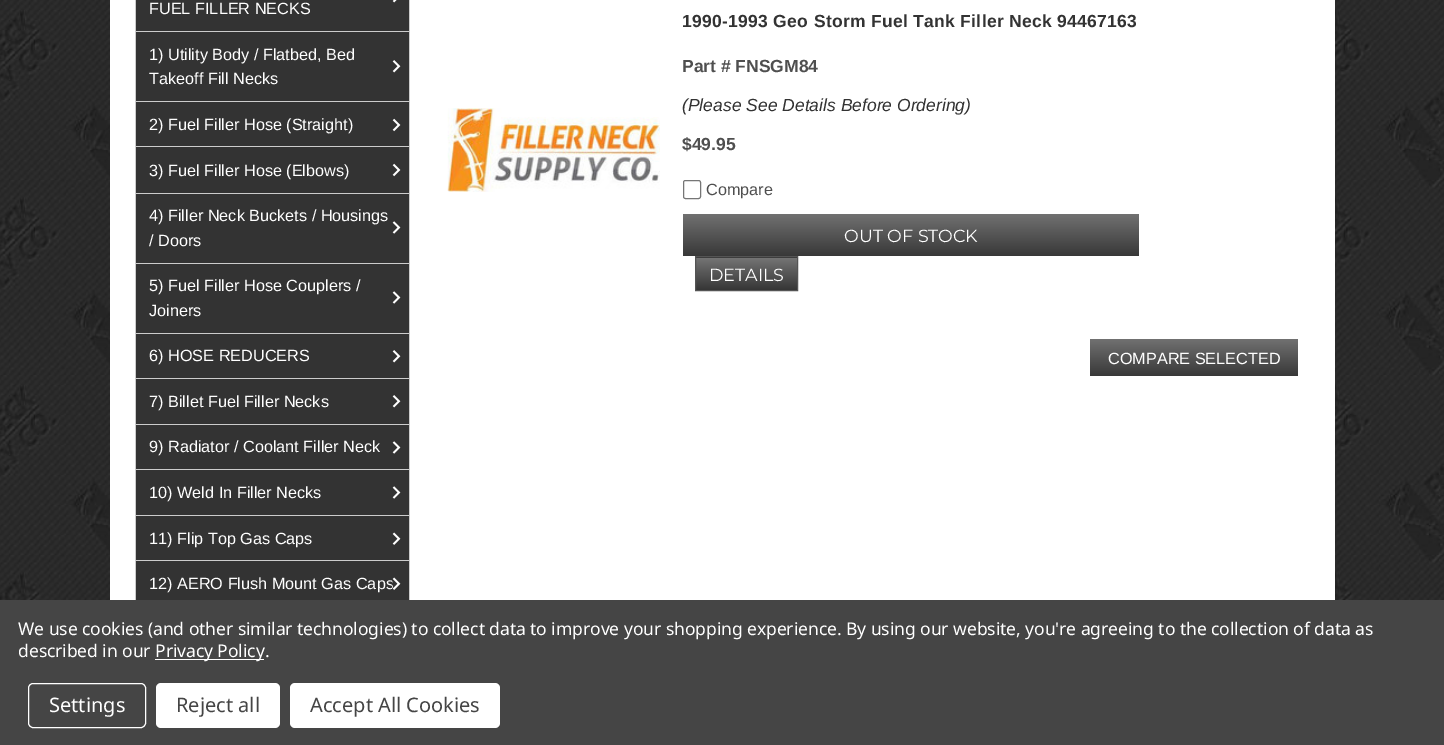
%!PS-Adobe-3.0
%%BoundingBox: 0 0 1444 745
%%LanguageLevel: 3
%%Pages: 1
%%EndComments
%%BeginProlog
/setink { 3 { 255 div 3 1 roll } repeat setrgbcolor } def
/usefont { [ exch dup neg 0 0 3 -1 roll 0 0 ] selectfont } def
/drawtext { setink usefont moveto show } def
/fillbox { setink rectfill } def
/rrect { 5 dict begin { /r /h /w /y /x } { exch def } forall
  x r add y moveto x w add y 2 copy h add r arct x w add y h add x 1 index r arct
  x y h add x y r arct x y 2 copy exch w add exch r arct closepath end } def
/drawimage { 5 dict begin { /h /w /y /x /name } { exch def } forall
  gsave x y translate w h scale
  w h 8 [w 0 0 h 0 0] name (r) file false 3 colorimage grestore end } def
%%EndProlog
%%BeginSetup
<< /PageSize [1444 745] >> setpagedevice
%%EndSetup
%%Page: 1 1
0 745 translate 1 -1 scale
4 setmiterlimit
0 0 1444 745 255 255 255 fillbox
(assets/img1.rgb) 0 0 1444 600 drawimage
110 0 1225 600 255 255 255 fillbox
409 0 1 600 204 204 204 fillbox
135 0 1 600 204 204 204 fillbox
136 0 273 193 51 51 51 fillbox
136 31 273 1 204 204 204 fillbox
(assets/img2.rgb) 392 0 5 3 drawimage
(FUEL FILLER NECKS) 149 14 /LiberationSans-Regular 16.25 255 255 255 drawtext
136 101 273 1 204 204 204 fillbox
(1\) Utility Body / Flatbed, Bed) 149 60 /LiberationSans-Regular 16.25 255 255 255 drawtext
(assets/img3.rgb) 392 60 9 13 drawimage
(Takeoff Fill Necks) 149 84 /LiberationSans-Regular 16.25 255 255 255 drawtext
136 146 273 1 204 204 204 fillbox
(2\) Fuel Filler Hose \(Straight\)) 149 130 /LiberationSans-Regular 16.25 255 255 255 drawtext
(assets/img4.rgb) 392 118 9 14 drawimage
136 193 273 1 204 204 204 fillbox
(3\) Fuel Filler Hose \(Elbows\)) 149 176 /LiberationSans-Regular 16.25 255 255 255 drawtext
(assets/img4.rgb) 392 163 9 14 drawimage
136 194 273 69 51 51 51 fillbox
136 263 273 1 204 204 204 fillbox
(4\) Filler Neck Buckets / Housings) 149 221 /LiberationSans-Regular 16.25 255 255 255 drawtext
(assets/img5.rgb) 392 221 9 13 drawimage
(/ Doors) 149 246 /LiberationSans-Regular 16.25 255 255 255 drawtext
136 264 273 69 51 51 51 fillbox
136 333 273 1 204 204 204 fillbox
(5\) Fuel Filler Hose Couplers /) 149 291 /LiberationSans-Regular 16.25 255 255 255 drawtext
(assets/img5.rgb) 392 291 9 13 drawimage
(Joiners) 149 316 /LiberationSans-Regular 16.25 255 255 255 drawtext
136 334 273 44 51 51 51 fillbox
136 378 273 1 204 204 204 fillbox
(6\) HOSE REDUCERS) 149 361 /LiberationSans-Regular 16.25 255 255 255 drawtext
(assets/img3.rgb) 392 350 9 13 drawimage
136 379 273 45 51 51 51 fillbox
136 424 273 1 204 204 204 fillbox
(7\) Billet Fuel Filler Necks) 149 407 /LiberationSans-Regular 16.25 255 255 255 drawtext
(assets/img3.rgb) 392 395 9 13 drawimage
136 425 273 44 51 51 51 fillbox
136 469 273 1 204 204 204 fillbox
(9\) Radiator / Coolant Filler Neck) 149 452 /LiberationSans-Regular 16.25 255 255 255 drawtext
(assets/img5.rgb) 392 441 9 13 drawimage
136 470 273 45 51 51 51 fillbox
136 515 273 1 204 204 204 fillbox
(10\) Weld In Filler Necks) 149 498 /LiberationSans-Regular 16.25 255 255 255 drawtext
(assets/img5.rgb) 392 486 9 13 drawimage
136 516 273 44 51 51 51 fillbox
136 560 273 1 204 204 204 fillbox
(11\) Flip Top Gas Caps) 149 544 /LiberationSans-Regular 16.25 255 255 255 drawtext
(assets/img6.rgb) 392 532 9 13 drawimage
136 561 273 39 51 51 51 fillbox
(12\) AERO Flush Mount Gas Caps) 149 589 /LiberationSans-Regular 16.25 255 255 255 drawtext
(assets/img7.rgb) 392 577 9 13 drawimage
(assets/img8.rgb) 447 108 213 84 drawimage
/LiberationSans-Bold 17.5 usefont
51 51 51 setink
682 27 moveto 0.3 0 (1990-1993 Geo Storm Fuel Tank Filler Neck 94467163) ashow
(Part # FNSGM84) 682 72 /LiberationSans-Bold 17.5 79 79 79 drawtext
(\(Please See Details Before Ordering\)) 682 111 /LiberationSans-Italic 17.5 51 51 51 drawtext
($49.95) 682 150 /LiberationSans-Bold 17.5 79 79 79 drawtext
118 118 118 setink
683.5 180.5 17 18 2 rrect stroke
(Compare) 706 195 /LiberationSans-Regular 16.25 79 79 79 drawtext
gsave 683 214 moveto 1139 214 lineto 1139 256 lineto 683 256 lineto closepath clip newpath
<< /ShadingType 2 /ColorSpace /DeviceRGB /Coords [911 214 911 256] /Extend [true true] /Function << /FunctionType 2 /Domain [0 1] /C0 [0.443 0.443 0.443] /C1 [0.22 0.22 0.22] /N 1 >> >> shfill grestore
(OUT OF STOCK) 844 242 /Montserrat-Thin 17.5 255 255 255 drawtext
gsave 695 257 moveto 798 257 lineto 798 258 lineto 695 258 lineto closepath clip newpath
<< /ShadingType 2 /ColorSpace /DeviceRGB /Coords [746 225 746 258] /Extend [true true] /Function << /FunctionType 2 /Domain [0 1] /C0 [0.455 0.455 0.455] /C1 [0.212 0.212 0.212] /N 1 >> >> shfill grestore
gsave 696 258 moveto 797 258 lineto 797 290 lineto 696 290 lineto closepath clip newpath
<< /ShadingType 2 /ColorSpace /DeviceRGB /Coords [746 258 746 290] /Extend [true true] /Function << /FunctionType 2 /Domain [0 1] /C0 [0.455 0.455 0.455] /C1 [0.212 0.212 0.212] /N 1 >> >> shfill grestore
84 84 84 setink
695.5 256.5 102 34 rectstroke
(DETAILS) 709 281 /Montserrat-Thin 17.5 255 255 255 drawtext
gsave 1090 339 moveto 1298 339 lineto 1298 376 lineto 1090 376 lineto closepath clip newpath
<< /ShadingType 2 /ColorSpace /DeviceRGB /Coords [1194 339 1194 376] /Extend [true true] /Function << /FunctionType 2 /Domain [0 1] /C0 [0.443 0.443 0.443] /C1 [0.22 0.22 0.22] /N 1 >> >> shfill grestore
(COMPARE SELECTED) 1108 364 /LiberationSans-Regular 16.25 255 255 255 drawtext
0 600 1444 145 69 69 69 fillbox
/NotoSans-Regular 17.5 usefont
255 255 255 setink
18 635 moveto -0.06 0 (We use cookies \(and other similar technologies\) to collect data to improve your shopping experience. By using our website, you're agreeing to the collection of data as) ashow
18 657 moveto -0.06 0 (described in our) ashow
155 659 109 1 255 255 255 fillbox
155 657 moveto -0.06 0 (Privacy Policy.) ashow
28.5 683.5 117 44 4.5 rrect stroke
(Settings) 49 712 /NotoSans-Regular 20 255 255 255 drawtext
156 683 124 45 5 rrect fill
(Reject all) 176 712 /NotoSans-Regular 20 69 69 69 drawtext
255 255 255 setink
290 683 210 45 5 rrect fill
(Accept All Cookies) 310 712 /NotoSans-Regular 20 69 69 69 drawtext
showpage
%%EOF
